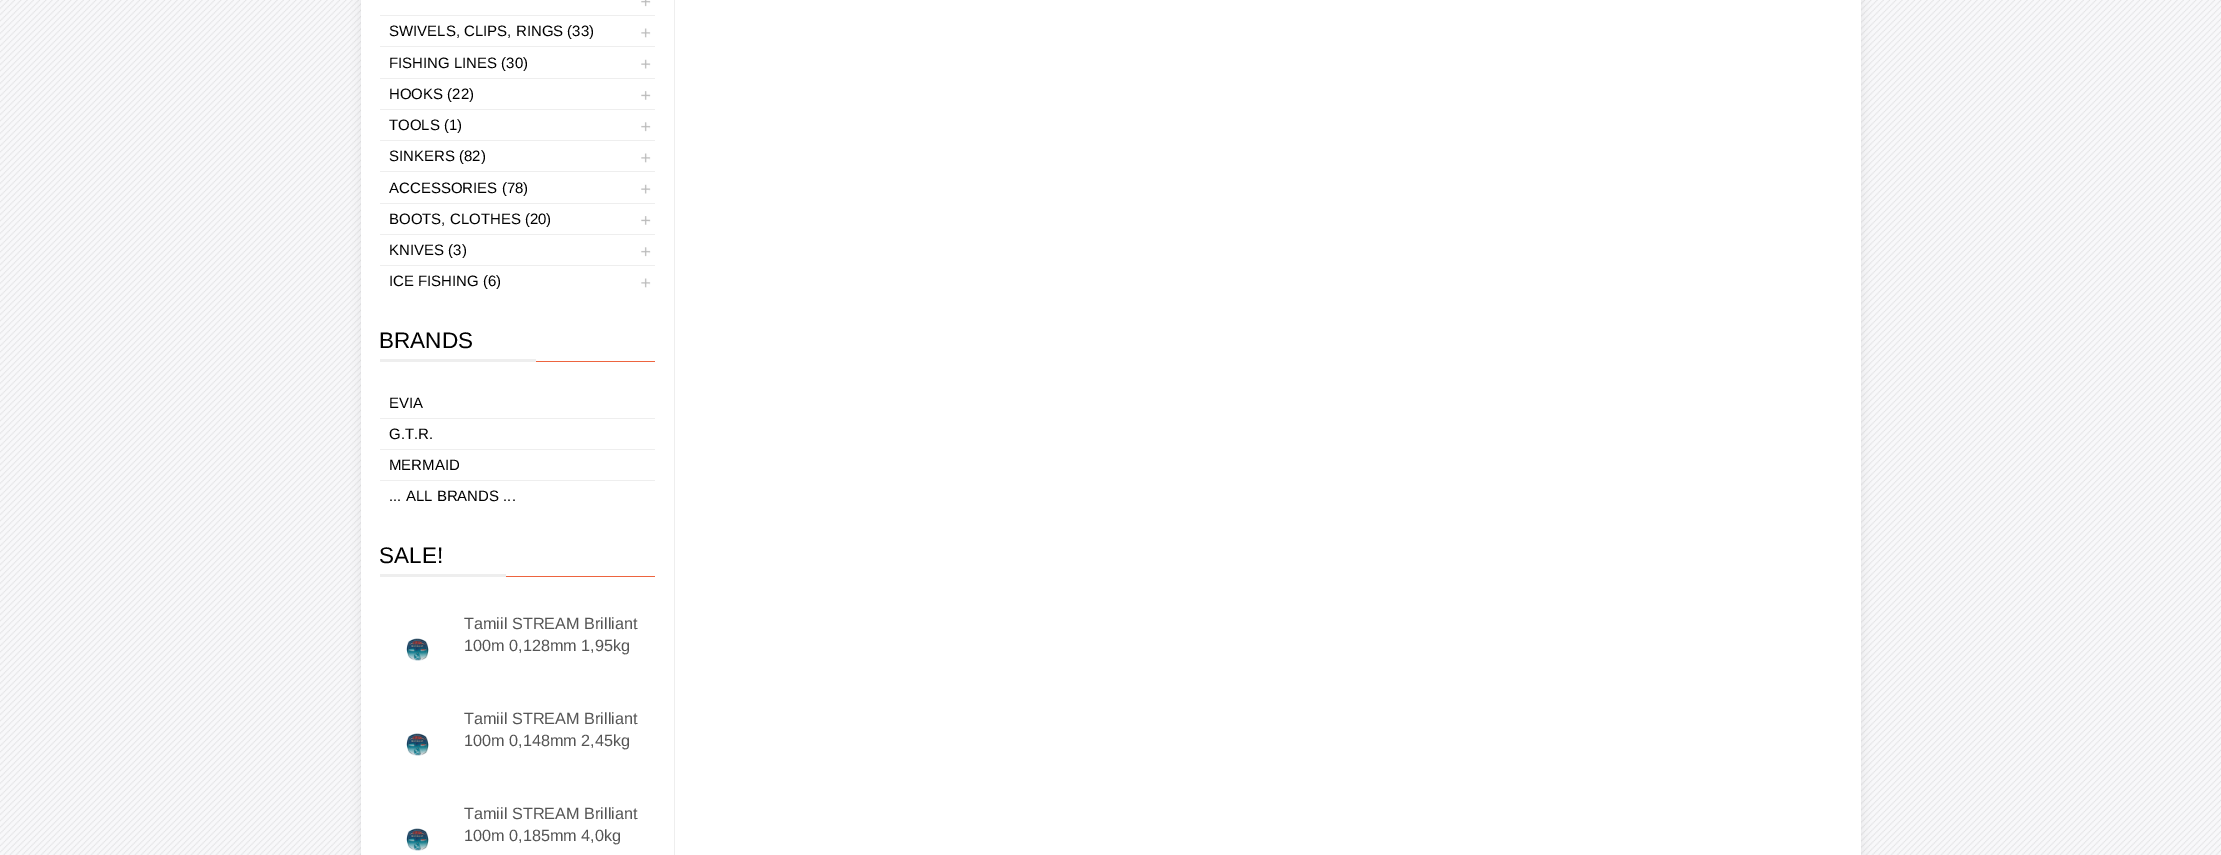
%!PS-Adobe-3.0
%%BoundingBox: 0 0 2221 855
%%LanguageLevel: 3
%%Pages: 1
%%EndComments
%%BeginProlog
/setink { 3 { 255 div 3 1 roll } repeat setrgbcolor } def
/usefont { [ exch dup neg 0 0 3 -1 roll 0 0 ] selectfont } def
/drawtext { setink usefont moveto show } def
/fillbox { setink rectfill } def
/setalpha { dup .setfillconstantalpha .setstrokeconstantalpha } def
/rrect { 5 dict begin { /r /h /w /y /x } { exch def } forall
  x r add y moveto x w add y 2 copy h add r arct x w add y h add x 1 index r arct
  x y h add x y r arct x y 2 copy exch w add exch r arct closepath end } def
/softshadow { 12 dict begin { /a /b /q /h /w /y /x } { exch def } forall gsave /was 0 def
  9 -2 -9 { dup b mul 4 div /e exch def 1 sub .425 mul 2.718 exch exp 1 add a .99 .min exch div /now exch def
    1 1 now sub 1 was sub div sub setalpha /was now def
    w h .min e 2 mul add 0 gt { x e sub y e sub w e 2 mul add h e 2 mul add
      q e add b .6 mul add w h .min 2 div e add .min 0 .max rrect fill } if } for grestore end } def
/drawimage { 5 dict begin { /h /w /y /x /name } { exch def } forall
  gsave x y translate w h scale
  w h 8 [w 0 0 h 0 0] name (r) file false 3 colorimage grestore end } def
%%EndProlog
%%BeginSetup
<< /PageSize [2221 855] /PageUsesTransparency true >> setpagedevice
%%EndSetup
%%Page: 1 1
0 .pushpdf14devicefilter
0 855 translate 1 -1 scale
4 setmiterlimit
0 0 2221 855 248 248 250 fillbox
(assets/img1.rgb) 0 0 2221 855 drawimage
0 0 0 setink
361 -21 1500 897 6 5 0.08 softshadow
361 0 1500 855 255 255 255 fillbox
674 0 1 855 238 238 238 fillbox
(assets/img2.rgb) 641 0 10 7 drawimage
380 15 275 1 238 238 238 fillbox
(SWIVELS, CLIPS, RINGS \(33\)) 389 36 /LiberationSans-Regular 15 0 0 0 drawtext
(assets/img3.rgb) 641 28 10 10 drawimage
380 46 275 1 238 238 238 fillbox
(FISHING LINES \(30\)) 389 68 /LiberationSans-Regular 15 0 0 0 drawtext
(assets/img4.rgb) 641 59 10 10 drawimage
380 78 275 1 238 238 238 fillbox
(HOOKS \(22\)) 389 99 /LiberationSans-Regular 15 0 0 0 drawtext
(assets/img5.rgb) 641 91 10 9 drawimage
380 109 275 1 238 238 238 fillbox
(TOOLS \(1\)) 389 130 /LiberationSans-Regular 15 0 0 0 drawtext
(assets/img6.rgb) 641 122 10 10 drawimage
380 140 275 1 238 238 238 fillbox
(SINKERS \(82\)) 389 161 /LiberationSans-Regular 15 0 0 0 drawtext
(assets/img3.rgb) 641 153 10 10 drawimage
380 171 275 1 238 238 238 fillbox
(ACCESSORIES \(78\)) 389 193 /LiberationSans-Regular 15 0 0 0 drawtext
(assets/img4.rgb) 641 184 10 10 drawimage
380 203 275 1 238 238 238 fillbox
(BOOTS, CLOTHES \(20\)) 389 224 /LiberationSans-Regular 15 0 0 0 drawtext
(assets/img5.rgb) 641 216 10 9 drawimage
380 234 275 1 238 238 238 fillbox
(KNIVES \(3\)) 389 255 /LiberationSans-Regular 15 0 0 0 drawtext
(assets/img6.rgb) 641 247 10 10 drawimage
380 265 275 1 238 238 238 fillbox
(ICE FISHING \(6\)) 389 286 /LiberationSans-Regular 15 0 0 0 drawtext
(assets/img3.rgb) 641 278 10 10 drawimage
536 361 119 1 237 100 63 fillbox
380 359 156 3 238 238 238 fillbox
(BRANDS) 379 348 /LiberationSans-Regular 22.5 0 0 0 drawtext
(EVIA) 389 408 /LiberationSans-Regular 15 0 0 0 drawtext
380 418 275 1 238 238 238 fillbox
(G.T.R.) 389 439 /LiberationSans-Regular 15 0 0 0 drawtext
380 449 275 1 238 238 238 fillbox
(MERMAID) 389 470 /LiberationSans-Regular 15 0 0 0 drawtext
380 480 275 1 238 238 238 fillbox
(... ALL BRANDS ...) 389 501 /LiberationSans-Regular 15 0 0 0 drawtext
506 576 149 1 237 100 63 fillbox
380 574 126 3 238 238 238 fillbox
(SALE!) 379 563 /LiberationSans-Regular 22.5 0 0 0 drawtext
(assets/img7.rgb) 406 638 23 23 drawimage
(Tamiil STREAM Brilliant) 464 629 /LiberationSans-Regular 16.25 85 85 85 drawtext
(100m 0,128mm 1,95kg) 464 651 /LiberationSans-Regular 16.25 85 85 85 drawtext
(assets/img7.rgb) 406 733 23 23 drawimage
(Tamiil STREAM Brilliant) 464 724 /LiberationSans-Regular 16.25 85 85 85 drawtext
(100m 0,148mm 2,45kg) 464 746 /LiberationSans-Regular 16.25 85 85 85 drawtext
(assets/img7.rgb) 406 828 23 23 drawimage
(Tamiil STREAM Brilliant) 464 819 /LiberationSans-Regular 16.25 85 85 85 drawtext
(100m 0,185mm 4,0kg) 464 841 /LiberationSans-Regular 16.25 85 85 85 drawtext
.poppdf14devicefilter showpage
%%EOF
